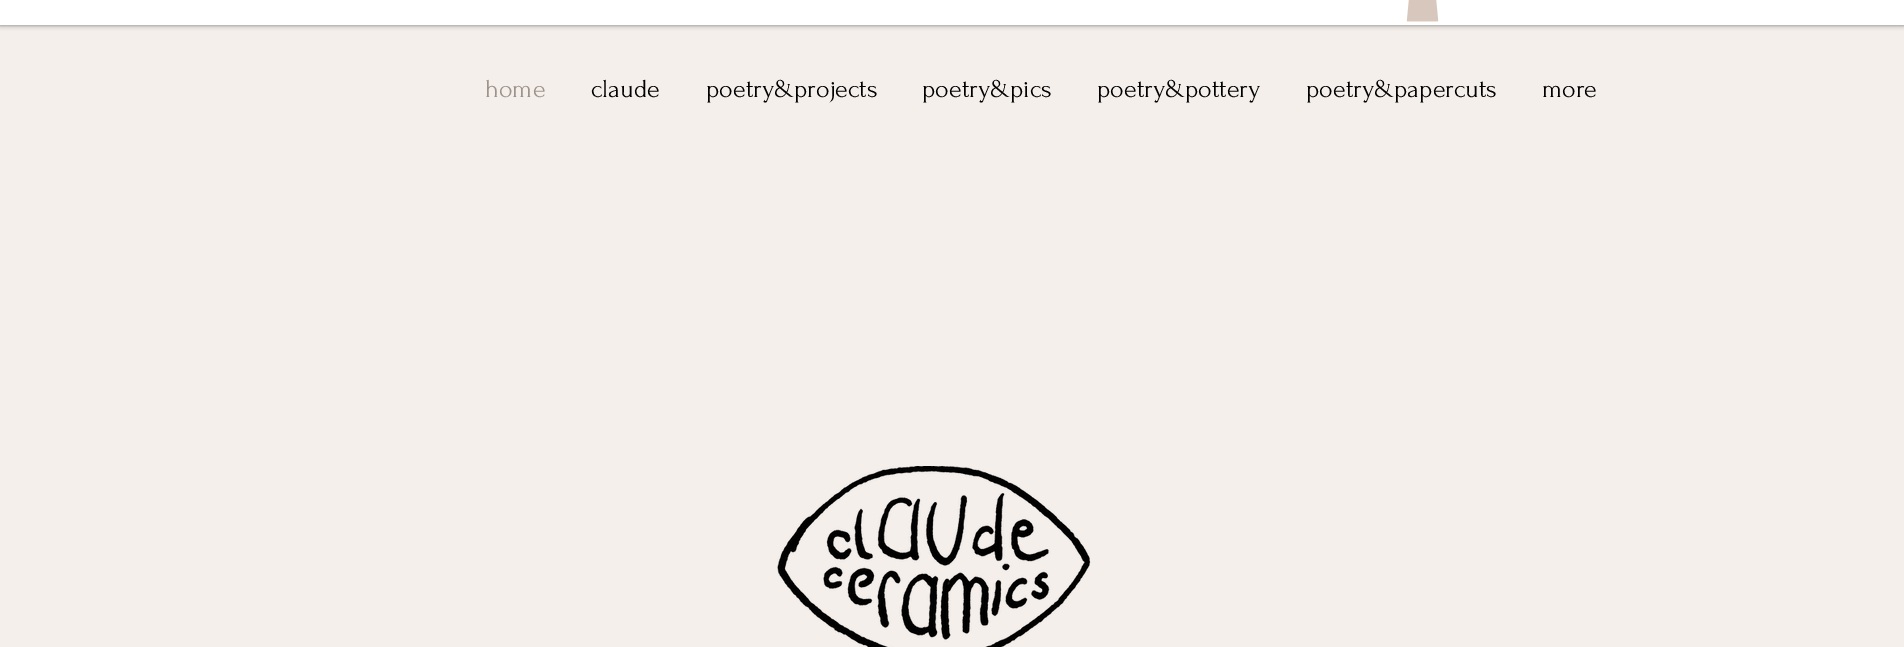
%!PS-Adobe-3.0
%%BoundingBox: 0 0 1904 647
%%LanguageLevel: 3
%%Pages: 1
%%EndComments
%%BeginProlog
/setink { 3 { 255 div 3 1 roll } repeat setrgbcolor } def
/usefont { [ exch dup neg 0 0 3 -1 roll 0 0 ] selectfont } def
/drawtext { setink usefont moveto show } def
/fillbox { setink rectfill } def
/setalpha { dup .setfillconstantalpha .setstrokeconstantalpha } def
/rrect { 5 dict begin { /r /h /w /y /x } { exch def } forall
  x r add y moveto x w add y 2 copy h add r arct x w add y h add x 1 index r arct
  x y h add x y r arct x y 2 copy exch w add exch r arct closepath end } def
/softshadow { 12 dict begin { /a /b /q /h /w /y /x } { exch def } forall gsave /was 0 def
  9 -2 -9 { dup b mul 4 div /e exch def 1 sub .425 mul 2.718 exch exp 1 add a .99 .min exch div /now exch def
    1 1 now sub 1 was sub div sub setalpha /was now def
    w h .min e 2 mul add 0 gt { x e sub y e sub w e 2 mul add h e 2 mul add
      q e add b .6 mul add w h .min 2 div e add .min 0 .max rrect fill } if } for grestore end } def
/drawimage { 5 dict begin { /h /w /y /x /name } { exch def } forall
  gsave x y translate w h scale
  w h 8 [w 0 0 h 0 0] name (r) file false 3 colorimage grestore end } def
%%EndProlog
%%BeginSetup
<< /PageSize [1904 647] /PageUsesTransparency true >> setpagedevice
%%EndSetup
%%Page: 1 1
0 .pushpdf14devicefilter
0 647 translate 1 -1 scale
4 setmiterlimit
0 0 1904 647 244 239 235 fillbox
0 0 0 setink
0 0 1904 25 0 2.5 0.5 softshadow
0 0 1904 25 255 255 255 fillbox
(assets/img1.rgb) 1406 0 33 22 drawimage
(home) 485 97 /Forum-Regular 26 158 146 139 drawtext
(claude) 591 97 /Forum-Regular 26 0 0 0 drawtext
(poetry&projects) 706 97 /Forum-Regular 26 0 0 0 drawtext
(poetry&pics) 922 97 /Forum-Regular 26 0 0 0 drawtext
(poetry&pottery) 1097 97 /Forum-Regular 26 0 0 0 drawtext
(poetry&papercuts) 1306 97 /Forum-Regular 26 0 0 0 drawtext
(more) 1542 97 /Forum-Regular 26 0 0 0 drawtext
(assets/img2.rgb) 777 466 314 181 drawimage
.poppdf14devicefilter showpage
%%EOF
